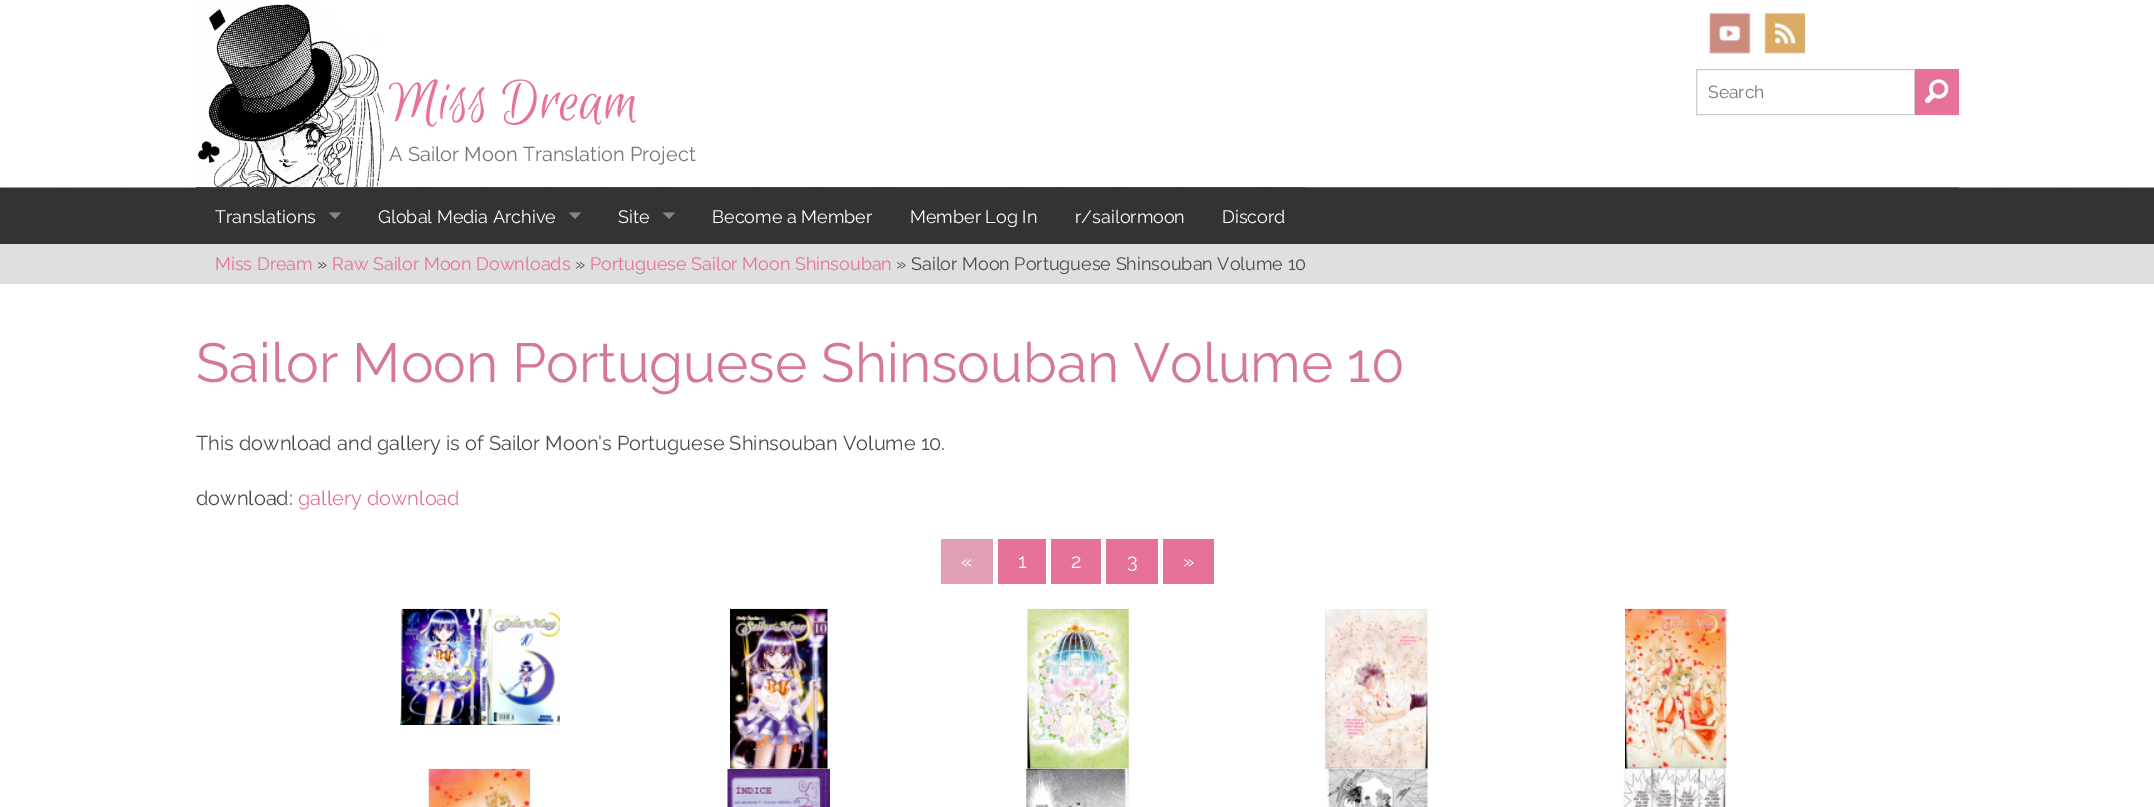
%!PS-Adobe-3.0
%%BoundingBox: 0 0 2154 807
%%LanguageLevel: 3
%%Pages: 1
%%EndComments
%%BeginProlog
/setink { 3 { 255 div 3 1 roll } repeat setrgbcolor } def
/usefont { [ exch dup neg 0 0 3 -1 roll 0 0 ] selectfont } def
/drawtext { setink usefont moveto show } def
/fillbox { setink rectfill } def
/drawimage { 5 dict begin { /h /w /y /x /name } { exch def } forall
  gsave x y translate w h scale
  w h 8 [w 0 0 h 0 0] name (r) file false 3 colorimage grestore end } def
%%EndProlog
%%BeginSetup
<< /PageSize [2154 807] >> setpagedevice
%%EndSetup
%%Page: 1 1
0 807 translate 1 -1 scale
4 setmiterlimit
0 0 2154 807 255 255 255 fillbox
(assets/img5.rgb) 0 187 2154 1 drawimage
(assets/img1.rgb) 196 4 188 184 drawimage
(Miss Dream) 389 119 /EuphoriaScript-Regular 64 231 114 153 drawtext
(A Sailor Moon Translation Project) 389 161 /Raleway-Regular 20 119 119 119 drawtext
(assets/img2.rgb) 1708 12 43 42 drawimage
(assets/img3.rgb) 1763 12 42 42 drawimage
204 204 204 setink
1696.5 69.5 218 45 rectstroke
(Search) 1708 98 /Raleway-Regular 17.5 119 119 119 drawtext
1915 69 44 46 231 114 153 fillbox
(assets/img4.rgb) 1925 79 24 25 drawimage
0 188 2154 56 51 51 51 fillbox
(assets/img6.rgb) 196 187 1763 1 drawimage
(assets/img7.rgb) 196 187 164 1 drawimage
(assets/img8.rgb) 196 187 164 1 drawimage
(Translations) 215 223 /Raleway-Regular 18 255 255 255 drawtext
133 133 133 setink
329 212.5 moveto 341 212.5 lineto 335 219 lineto closepath fill
(assets/img9.rgb) 360 187 240 1 drawimage
(assets/img10.rgb) 360 187 240 1 drawimage
(Global Media Archive) 378 223 /Raleway-Regular 18 255 255 255 drawtext
133 133 133 setink
569 212.5 moveto 581 212.5 lineto 575 219 lineto closepath fill
(assets/img13.rgb) 693 187 199 1 drawimage
(assets/img14.rgb) 693 187 199 1 drawimage
(assets/img11.rgb) 600 187 94 1 drawimage
(assets/img12.rgb) 600 187 94 1 drawimage
(Site) 618 223 /Raleway-Regular 18 255 255 255 drawtext
133 133 133 setink
662.5 212.5 moveto 675 212.5 lineto 669 219 lineto closepath fill
(Become a Member) 712 223 /Raleway-Regular 18 255 255 255 drawtext
(assets/img15.rgb) 891 187 166 1 drawimage
(assets/img16.rgb) 891 187 166 1 drawimage
(Member Log In) 910 223 /Raleway-Regular 18 255 255 255 drawtext
(assets/img17.rgb) 1056 187 148 1 drawimage
(assets/img18.rgb) 1056 187 148 1 drawimage
(r/sailormoon) 1075 223 /Raleway-Regular 18 255 255 255 drawtext
(assets/img19.rgb) 1204 187 101 1 drawimage
(assets/img20.rgb) 1204 187 101 1 drawimage
(Discord) 1222 223 /Raleway-Regular 18 255 255 255 drawtext
0 244 2154 40 223 223 223 fillbox
(Miss Dream) 215 270 /Raleway-Regular 18 231 114 153 drawtext
(») 317 270 /Raleway-Regular 18 74 74 74 drawtext
(Raw Sailor Moon Downloads) 332 270 /Raleway-Regular 18 231 114 153 drawtext
(») 575 270 /Raleway-Regular 18 74 74 74 drawtext
(Portuguese Sailor Moon Shinsouban) 590 270 /Raleway-Regular 18 231 114 153 drawtext
(» Sailor Moon Portuguese Shinsouban Volume 10) 896 270 /Raleway-Regular 18 74 74 74 drawtext
(Sailor Moon Portuguese Shinsouban Volume 10) 196 382 /Raleway-Regular 55 213 119 150 drawtext
(This download and gallery is of Sailor Moon’s Portuguese Shinsouban Volume 10.) 196 450 /Raleway-Regular 20 74 74 74 drawtext
(download:) 196 505 /Raleway-Regular 20 74 74 74 drawtext
(gallery download) 298 505 /Raleway-Regular 20 231 114 153 drawtext
941 539 52 45 226 160 182 fillbox
(«) 961 568 /Raleway-Regular 20 255 255 255 drawtext
998 539 48 45 231 114 153 fillbox
(1) 1018 568 /Raleway-Regular 20 255 255 255 drawtext
1051 539 50 45 231 114 153 fillbox
(2) 1071 568 /Raleway-Regular 20 255 255 255 drawtext
1106 539 52 45 231 114 153 fillbox
(3) 1127 568 /Raleway-Regular 20 255 255 255 drawtext
1163 539 51 45 231 114 153 fillbox
(») 1183 568 /Raleway-Regular 20 255 255 255 drawtext
(assets/img21.rgb) 400 608 160 117 drawimage
(assets/img22.rgb) 730 608 98 161 drawimage
(assets/img23.rgb) 1027 608 102 161 drawimage
(assets/img24.rgb) 1325 609 103 160 drawimage
(assets/img25.rgb) 1625 608 102 161 drawimage
(assets/img26.rgb) 428 768 102 39 drawimage
(assets/img27.rgb) 727 768 103 39 drawimage
(assets/img28.rgb) 1026 768 103 39 drawimage
(assets/img29.rgb) 1326 768 102 39 drawimage
(assets/img30.rgb) 1623 768 104 39 drawimage
showpage
%%EOF
